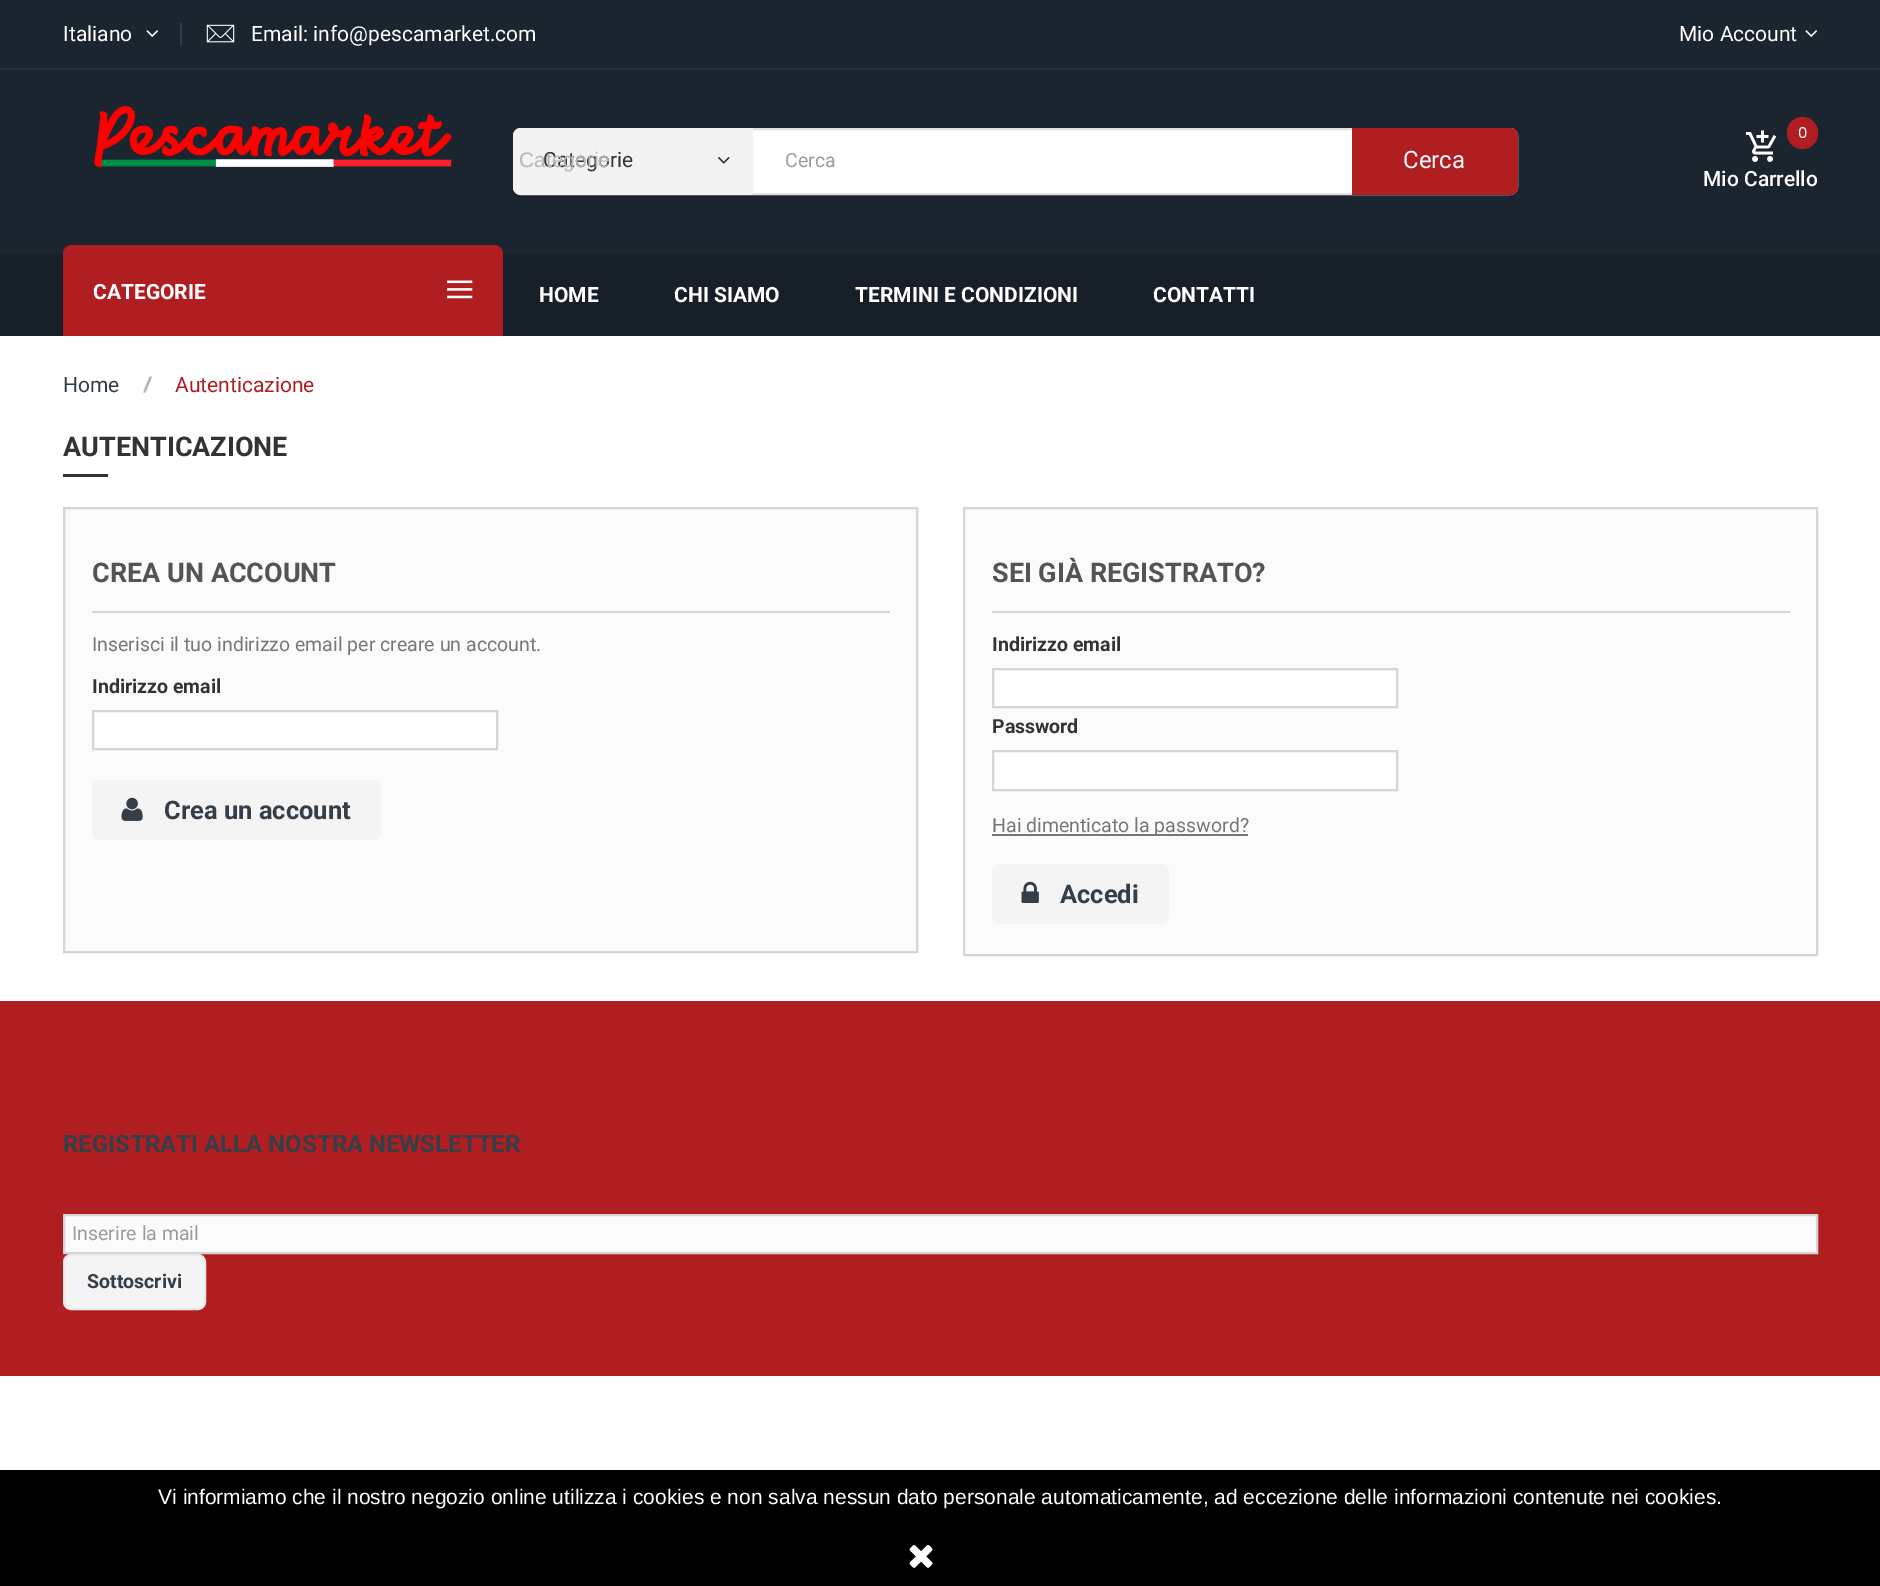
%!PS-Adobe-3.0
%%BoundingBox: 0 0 1880 1586
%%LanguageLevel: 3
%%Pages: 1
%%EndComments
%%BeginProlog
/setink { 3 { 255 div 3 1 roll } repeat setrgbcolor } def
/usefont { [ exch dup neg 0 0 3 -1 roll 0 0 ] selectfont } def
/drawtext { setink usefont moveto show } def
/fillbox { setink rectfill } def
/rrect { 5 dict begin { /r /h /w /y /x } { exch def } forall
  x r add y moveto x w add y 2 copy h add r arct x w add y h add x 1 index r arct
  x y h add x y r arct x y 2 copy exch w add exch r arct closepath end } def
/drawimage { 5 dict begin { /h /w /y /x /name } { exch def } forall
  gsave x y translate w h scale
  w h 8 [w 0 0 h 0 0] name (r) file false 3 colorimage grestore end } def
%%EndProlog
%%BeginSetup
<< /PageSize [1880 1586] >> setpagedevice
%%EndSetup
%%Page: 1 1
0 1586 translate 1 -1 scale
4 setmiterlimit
0 0 1880 1586 255 255 255 fillbox
0 0 1880 254 27 37 47 fillbox
0 68 1880 2 38 49 60 fillbox
(Italiano) 63 41 /Roboto-Regular 21 255 255 255 drawtext
(assets/img1.rgb) 146 30 12 7 drawimage
180 23 2 22 48 61 73 fillbox
(assets/img2.rgb) 206 24 29 19 drawimage
(Email: info@pescamarket.com) 251 41 /Roboto-Regular 21 255 255 255 drawtext
(Mio Account) 1679 41 /Roboto-Regular 21 255 255 255 drawtext
(assets/img1.rgb) 1805 30 12 7 drawimage
(assets/img3.rgb) 94 106 358 62 drawimage
514 129 1003 65 7 rrect gsave fill grestore
225 225 225 setink
2 setlinewidth
stroke
243 243 243 setink
521 128 moveto 753 128 lineto 753 195 lineto 521 195 lineto 516.5 195 513 191.5 513 187 curveto 513 136 lineto 513 131.5 516.5 128 521 128 curveto closepath fill
(Categorie) 543 167 /Roboto-Regular 21 51 51 51 drawtext
(Categorie) 519 167 /LiberationSans-Regular 21 182 182 184 drawtext
(assets/img4.rgb) 718 157 12 7 drawimage
(Cerca) 785 167 /Roboto-Regular 19.5 156 155 155 drawtext
177 30 34 setink
1352 128 moveto 1510 128 lineto 1514.5 128 1518 131.5 1518 136 curveto 1518 187 lineto 1518 191.5 1514.5 195 1510 195 curveto 1352 195 lineto closepath fill
(Cerca) 1403 168 /Roboto-Regular 24 255 255 255 drawtext
(assets/img5.rgb) 1746 130 31 32 drawimage
177 30 34 setink
1787 117 31 32 15.5 rrect fill
(0) 1798 138 /Poppins-Regular 15 255 255 255 drawtext
(Mio Carrello) 1703 186 /Roboto-Medium 21 255 255 255 drawtext
0 254 1880 82 23 32 41 fillbox
63 254 440 82 177 30 34 fillbox
72 245 moveto 494 245 lineto 499 245 503 249 503 254 curveto 63 254 lineto 63 249 67 245 72 245 curveto closepath fill
(CATEGORIE) 93 299 /Roboto-Bold 21 255 255 255 drawtext
(assets/img6.rgb) 447 280 26 19 drawimage
(HOME) 539 302 /Roboto-Bold 21 255 255 255 drawtext
(CHI SIAMO) 674 302 /Roboto-Bold 21 255 255 255 drawtext
(TERMINI E CONDIZIONI) 855 302 /Roboto-Bold 21 255 255 255 drawtext
(CONTATTI) 1153 302 /Roboto-Bold 21 255 255 255 drawtext
(Home) 63 392 /Roboto-Regular 21 51 62 72 drawtext
(assets/img7.rgb) 142 376 11 17 drawimage
(Autenticazione) 175 392 /Roboto-Regular 21 177 30 34 drawtext
(AUTENTICAZIONE) 63 456 /Roboto-Bold 27 51 51 51 drawtext
63 474 45 3 51 51 51 fillbox
251 251 251 setink
64 508 moveto 917 508 lineto 917 952 lineto 64 952 lineto closepath gsave fill grestore
214 212 212 setink
stroke
92 611 798 2 214 212 212 fillbox
(CREA UN ACCOUNT) 92 582 /Roboto-Bold 27 85 84 84 drawtext
(Inserisci il tuo indirizzo email per creare un account.) 92 651 /Roboto-Regular 19.5 119 119 119 drawtext
(Indirizzo email) 92 693 /Roboto-Bold 19.5 51 51 51 drawtext
255 255 255 setink
93 711 moveto 497 711 lineto 497 749 lineto 93 749 lineto closepath gsave fill grestore
214 212 212 setink
stroke
244 244 244 setink
92 780 289 60 8 rrect fill
(assets/img8.rgb) 121 797 22 24 drawimage
(Crea un account) 164 819 /Roboto-Bold 25.5 51 62 72 drawtext
251 251 251 setink
964 508 moveto 1817 508 lineto 1817 955 lineto 964 955 lineto closepath gsave fill grestore
214 212 212 setink
stroke
992 611 798 2 214 212 212 fillbox
(SEI GIÀ REGISTRATO?) 992 582 /Roboto-Bold 27 85 84 84 drawtext
(Indirizzo email) 992 651 /Roboto-Bold 19.5 51 51 51 drawtext
255 255 255 setink
993 669 moveto 1397 669 lineto 1397 707 lineto 993 707 lineto closepath gsave fill grestore
214 212 212 setink
stroke
(Password) 992 733 /Roboto-Bold 19.5 51 51 51 drawtext
255 255 255 setink
993 751 moveto 1397 751 lineto 1397 790 lineto 993 790 lineto closepath gsave fill grestore
214 212 212 setink
stroke
992 834 256 2 119 119 119 fillbox
(Hai dimenticato la password?) 992 832 /Roboto-Regular 19.5 119 119 119 drawtext
244 244 244 setink
992 864 177 60 8 rrect fill
(assets/img9.rgb) 1021 881 18 22 drawimage
(Accedi) 1060 903 /Roboto-Bold 25.5 51 62 72 drawtext
0 1001 1880 375 177 30 34 fillbox
(REGISTRATI ALLA NOSTRA NEWSLETTER) 63 1152 /Roboto-Bold 24 51 62 72 drawtext
251 251 251 setink
64 1215 moveto 1817 1215 lineto 1817 1253 lineto 64 1253 lineto closepath gsave fill grestore
214 212 212 setink
stroke
(Inserire la mail) 72 1240 /Roboto-Regular 19.5 156 155 155 drawtext
244 244 244 setink
64 1255 141 54 7 rrect gsave fill grestore
235 235 235 setink
stroke
(Sottoscrivi) 87 1288 /Roboto-Bold 19.5 51 62 72 drawtext
0 1470 1880 116 0 0 0 fillbox
(Vi informiamo che il nostro negozio online utilizza i cookies e non salva nessun dato personale automaticamente, ad eccezione delle informazioni contenute nei cookies.) 158 1504 /LiberationSans-Regular 21 255 255 255 drawtext
(assets/img10.rgb) 909 1545 24 23 drawimage
showpage
%%EOF
